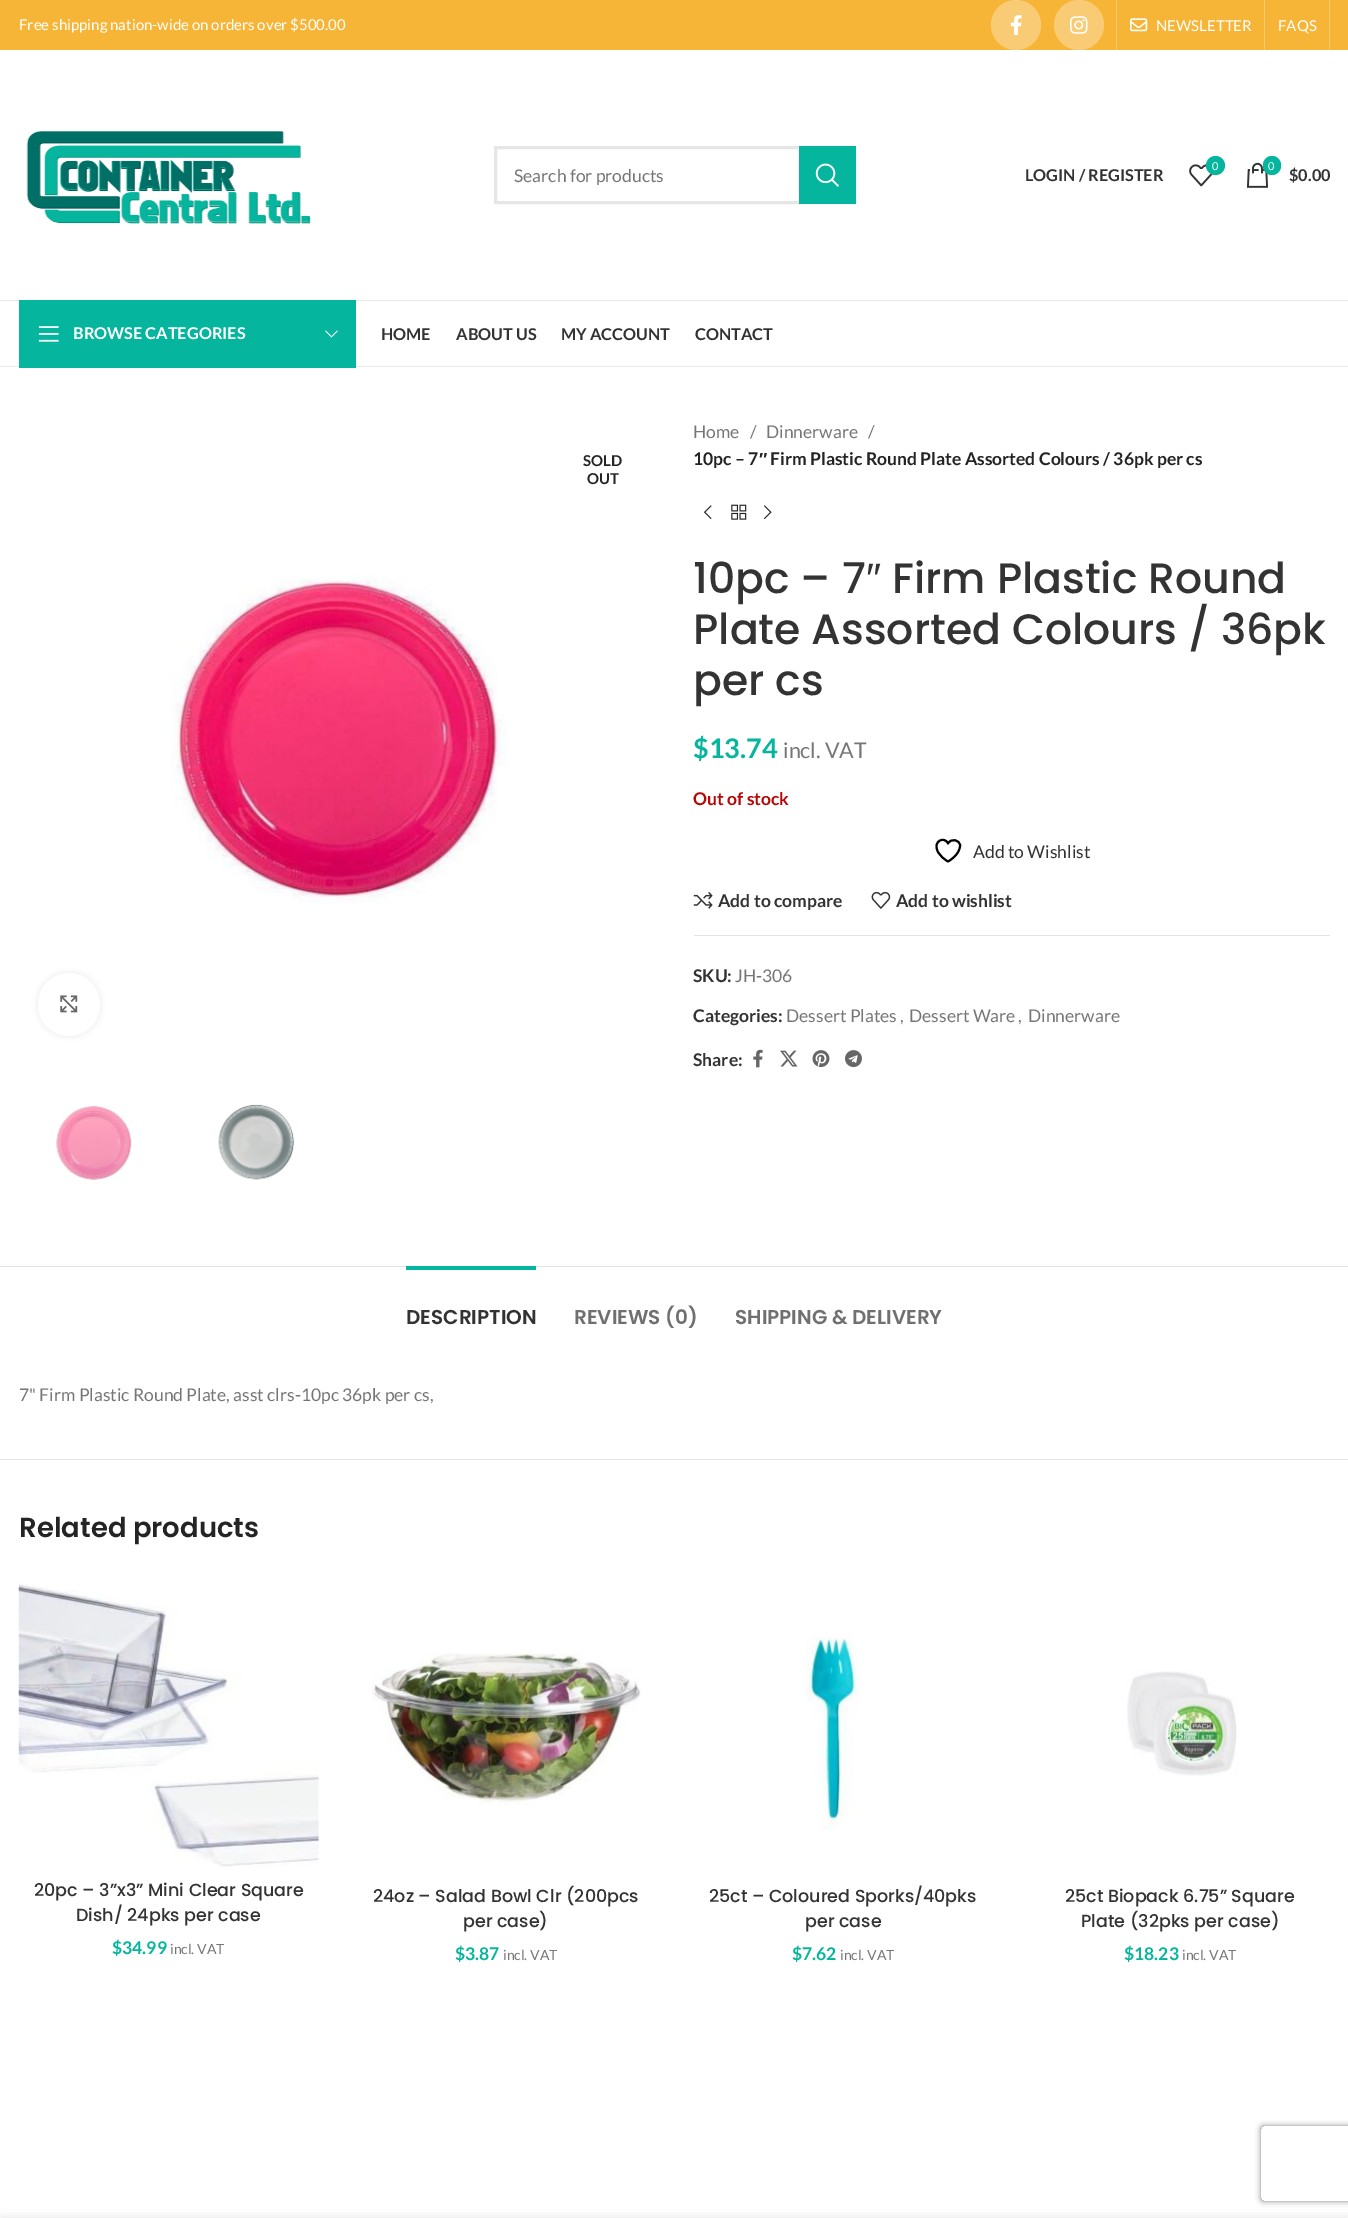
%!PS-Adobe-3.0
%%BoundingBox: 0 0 1348 2218
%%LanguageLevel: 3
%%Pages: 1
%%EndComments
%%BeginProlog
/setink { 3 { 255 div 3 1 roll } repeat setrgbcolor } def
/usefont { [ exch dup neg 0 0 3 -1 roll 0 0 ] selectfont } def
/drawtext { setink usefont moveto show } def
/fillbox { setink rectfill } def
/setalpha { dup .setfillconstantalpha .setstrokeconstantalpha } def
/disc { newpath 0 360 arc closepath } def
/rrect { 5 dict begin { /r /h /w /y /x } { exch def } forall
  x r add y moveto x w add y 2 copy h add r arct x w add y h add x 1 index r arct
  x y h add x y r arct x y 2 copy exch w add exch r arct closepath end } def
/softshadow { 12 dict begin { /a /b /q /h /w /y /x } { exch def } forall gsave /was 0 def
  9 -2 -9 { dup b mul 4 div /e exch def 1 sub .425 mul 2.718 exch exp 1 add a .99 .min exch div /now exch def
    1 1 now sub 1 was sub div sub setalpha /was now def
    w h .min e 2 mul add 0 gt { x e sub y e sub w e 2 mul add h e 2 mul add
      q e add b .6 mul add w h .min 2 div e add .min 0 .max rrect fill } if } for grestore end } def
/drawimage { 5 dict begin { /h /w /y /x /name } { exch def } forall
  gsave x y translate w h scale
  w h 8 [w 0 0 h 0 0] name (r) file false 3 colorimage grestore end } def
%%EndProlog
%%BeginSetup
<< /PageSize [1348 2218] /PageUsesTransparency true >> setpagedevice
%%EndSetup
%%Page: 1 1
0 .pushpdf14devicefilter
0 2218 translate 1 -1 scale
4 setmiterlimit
0 0 1348 2218 255 255 255 fillbox
0 0 1348 50 247 181 56 fillbox
(Free shipping nation-wide on orders over $500.00) 19 30 /Lato-Regular 15 255 255 255 drawtext
249 203 116 setink
1016 25 25 disc fill
(assets/img1.rgb) 1010 15 12 20 drawimage
1079 25 25 disc fill
(assets/img2.rgb) 1070 16 18 18 drawimage
1116 0 1 50 249 200 106 fillbox
(assets/img3.rgb) 1130 18 18 14 drawimage
(NEWSLETTER) 1156 31 /Lato-Regular 15 255 255 255 drawtext
1264 0 1 50 249 200 106 fillbox
(FAQS) 1278 31 /Lato-Regular 15 255 255 255 drawtext
1329 0 1 50 249 200 106 fillbox
0 300 1348 1 232 232 232 fillbox
(assets/img4.rgb) 26 131 285 93 drawimage
230 230 230 setink
3 setlinewidth
495.5 147.5 359 55 rectstroke
(Search for products) 514 182 /Lato-Regular 17.5 118 118 118 drawtext
799 146 57 58 5 181 157 fillbox
(assets/img5.rgb) 815 163 24 24 drawimage
(LOGIN / REGISTER) 1025 181 /Lato-Bold 16.25 51 51 51 drawtext
(assets/img6.rgb) 1189 164 24 23 drawimage
5 181 157 setink
1215.5 165.5 9.5 disc fill
(0) 1212 170 /Lato-Regular 11 255 255 255 drawtext
(assets/img7.rgb) 1246 162 23 26 drawimage
5 181 157 setink
1263 156 18 19 9 rrect fill
(0) 1268 170 /Lato-Regular 11 255 255 255 drawtext
($0.00) 1289 181 /Lato-Bold 16.25 51 51 51 drawtext
0 366 1348 1 232 232 232 fillbox
19 300 337 68 5 181 157 fillbox
(assets/img8.rgb) 38 326 21 16 drawimage
(BROWSE CATEGORIES) 73 339 /Lato-Bold 16.25 255 255 255 drawtext
(assets/img9.rgb) 325 330 13 8 drawimage
(HOME) 381 340 /Lato-Bold 16.25 51 51 51 drawtext
(ABOUT US) 456 340 /Lato-Bold 16.25 51 51 51 drawtext
(MY ACCOUNT) 561 340 /Lato-Bold 16.25 51 51 51 drawtext
(CONTACT) 695 340 /Lato-Bold 16.25 51 51 51 drawtext
(SOLD) 583 466 /Lato-Bold 15 36 36 36 drawtext
(OUT) 587 484 /Lato-Bold 15 36 36 36 drawtext
(assets/img10.rgb) 171 575 336 329 drawimage
0 0 0 setink
38 973 62 63 31 3 0.08 softshadow
255 255 255 setink
38 973 62 63 31 rrect fill
(assets/img11.rgb) 60 995 18 18 drawimage
(assets/img12.rgb) 56 1106 76 74 drawimage
(assets/img13.rgb) 218 1104 77 76 drawimage
(Home) 693 438 /Lato-Regular 17.5 118 118 118 drawtext
(/) 750 438 /Lato-Regular 17.5 118 118 118 drawtext
(Dinnerware) 766 438 /Lato-Regular 17.5 118 118 118 drawtext
(/) 868 438 /Lato-Regular 17.5 118 118 118 drawtext
(10pc – 7) 693 465 /Lato-Bold 17.5 36 36 36 drawtext
(″) 759 465 /LiberationSans-Bold 17.5 36 36 36 drawtext
(Firm Plastic Round Plate Assorted Colours / 36pk per cs) 770 465 /Lato-Bold 17.5 36 36 36 drawtext
(assets/img14.rgb) 703 505 9 15 drawimage
(assets/img15.rgb) 731 504 16 16 drawimage
(assets/img16.rgb) 763 505 9 15 drawimage
(10pc – 7) 693 593 /Poppins-Medium 42.5 51 51 51 drawtext
(″) 866 593 /LiberationSans-Regular 42.5 51 51 51 drawtext
(Firm Plastic Round) 892 593 /Poppins-Medium 42.5 51 51 51 drawtext
(Plate Assorted Colours / 36pk) 693 644 /Poppins-Medium 42.5 51 51 51 drawtext
(per cs) 693 695 /Poppins-Medium 42.5 51 51 51 drawtext
($13.74) 693 758 /Lato-Bold 27 5 181 157 drawtext
(incl. VAT) 783 758 /Lato-Regular 21.5 118 118 118 drawtext
(Out of stock) 693 805 /Lato-Bold 17.5 181 8 8 drawtext
0 0 0 setink
2 setlinewidth
1 setlinecap
1 setlinejoin
960 845.5 moveto 960 839.5 950.5 838 948 843.5 curveto 945 836 932 840.5 938 852 curveto 940.5 856 944 859.5 948 861.5 curveto 948 861.5 960 855 960 845.5 curveto closepath stroke
(Add to Wishlist) 973 858 /Lato-Regular 17.5 51 51 51 drawtext
(assets/img17.rgb) 693 891 20 18 drawimage
(Add to compare) 718 907 /Lato-Bold 17.5 51 51 51 drawtext
(assets/img18.rgb) 871 891 20 18 drawimage
(Add to wishlist) 896 907 /Lato-Bold 17.5 51 51 51 drawtext
694 935 636 1 228 228 228 fillbox
(SKU:) 693 982 /Lato-Bold 17.5 51 51 51 drawtext
(JH-306) 735 982 /Lato-Regular 17.5 118 118 118 drawtext
(Categories:) 693 1022 /Lato-Bold 17.5 51 51 51 drawtext
(Dessert Plates) 786 1022 /Lato-Regular 17.5 118 118 118 drawtext
(,) 900 1022 /Lato-Regular 17.5 118 118 118 drawtext
(Dessert Ware) 909 1022 /Lato-Regular 17.5 118 118 118 drawtext
(,) 1018 1022 /Lato-Regular 17.5 118 118 118 drawtext
(Dinnerware) 1028 1022 /Lato-Regular 17.5 118 118 118 drawtext
(Share:) 693 1066 /Lato-Bold 17.5 51 51 51 drawtext
(assets/img19.rgb) 753 1049 10 19 drawimage
(assets/img20.rgb) 780 1050 18 17 drawimage
(assets/img21.rgb) 812 1050 18 17 drawimage
(assets/img22.rgb) 845 1050 17 18 drawimage
0 1266 1348 1 228 228 228 fillbox
0 1459 1348 1 228 228 228 fillbox
406 1266 130 4 5 181 157 fillbox
(DESCRIPTION) 406 1324 /Poppins-SemiBold 20 51 51 51 drawtext
(REVIEWS \(0\)) 574 1324 /Poppins-SemiBold 20 112 112 112 drawtext
(SHIPPING & DELIVERY) 735 1324 /Poppins-SemiBold 20 112 112 112 drawtext
(7" Firm Plastic Round Plate, asst clrs-10pc 36pk per cs,) 19 1401 /Lato-Regular 17.5 118 118 118 drawtext
(Related products) 19 1537 /Poppins-SemiBold 27.5 36 36 36 drawtext
(assets/img23.rgb) 18 1583 301 284 drawimage
(20pc – 3”x3” Mini Clear Square) 34 1896 /Poppins-Medium 17.5 51 51 51 drawtext
(Dish/ 24pks per case) 76 1921 /Poppins-Medium 17.5 51 51 51 drawtext
($34.99) 112 1954 /Lato-Bold 17.5 5 181 157 drawtext
(incl. VAT) 170 1954 /Lato-Regular 14 118 118 118 drawtext
(assets/img24.rgb) 372 1653 269 152 drawimage
(24oz – Salad Bowl Clr \(200pcs) 373 1902 /Poppins-Medium 17.5 51 51 51 drawtext
(per case\)) 463 1927 /Poppins-Medium 17.5 51 51 51 drawtext
($3.87) 455 1960 /Lato-Bold 17.5 5 181 157 drawtext
(incl. VAT) 503 1960 /Lato-Regular 14 118 118 118 drawtext
(assets/img25.rgb) 805 1637 55 193 drawimage
(25ct – Coloured Sporks/40pks) 709 1902 /Poppins-Medium 17.5 51 51 51 drawtext
(per case) 805 1927 /Poppins-Medium 17.5 51 51 51 drawtext
($7.62) 792 1960 /Lato-Bold 17.5 5 181 157 drawtext
(incl. VAT) 840 1960 /Lato-Regular 14 118 118 118 drawtext
(assets/img26.rgb) 1127 1671 111 105 drawimage
(25ct Biopack 6.75” Square) 1065 1902 /Poppins-Medium 17.5 51 51 51 drawtext
(Plate \(32pks per case\)) 1081 1927 /Poppins-Medium 17.5 51 51 51 drawtext
($18.23) 1124 1960 /Lato-Bold 17.5 5 181 157 drawtext
(incl. VAT) 1182 1960 /Lato-Regular 14 118 118 118 drawtext
gsave
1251 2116 moveto 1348 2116 lineto 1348 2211 lineto 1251 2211 lineto closepath 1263.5 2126 moveto 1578.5 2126 lineto 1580 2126 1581 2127 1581 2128.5 curveto 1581 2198.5 lineto 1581 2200 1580 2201 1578.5 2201 curveto 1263.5 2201 lineto 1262 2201 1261 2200 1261 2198.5 curveto 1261 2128.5 lineto 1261 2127 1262 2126 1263.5 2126 curveto closepath eoclip newpath
128 128 128 setink
1261 2126 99 75 2.5 3 1 softshadow
grestore
0 0 0 setink
0 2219 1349 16 0 5.5 0.14 softshadow
.poppdf14devicefilter showpage
%%EOF
